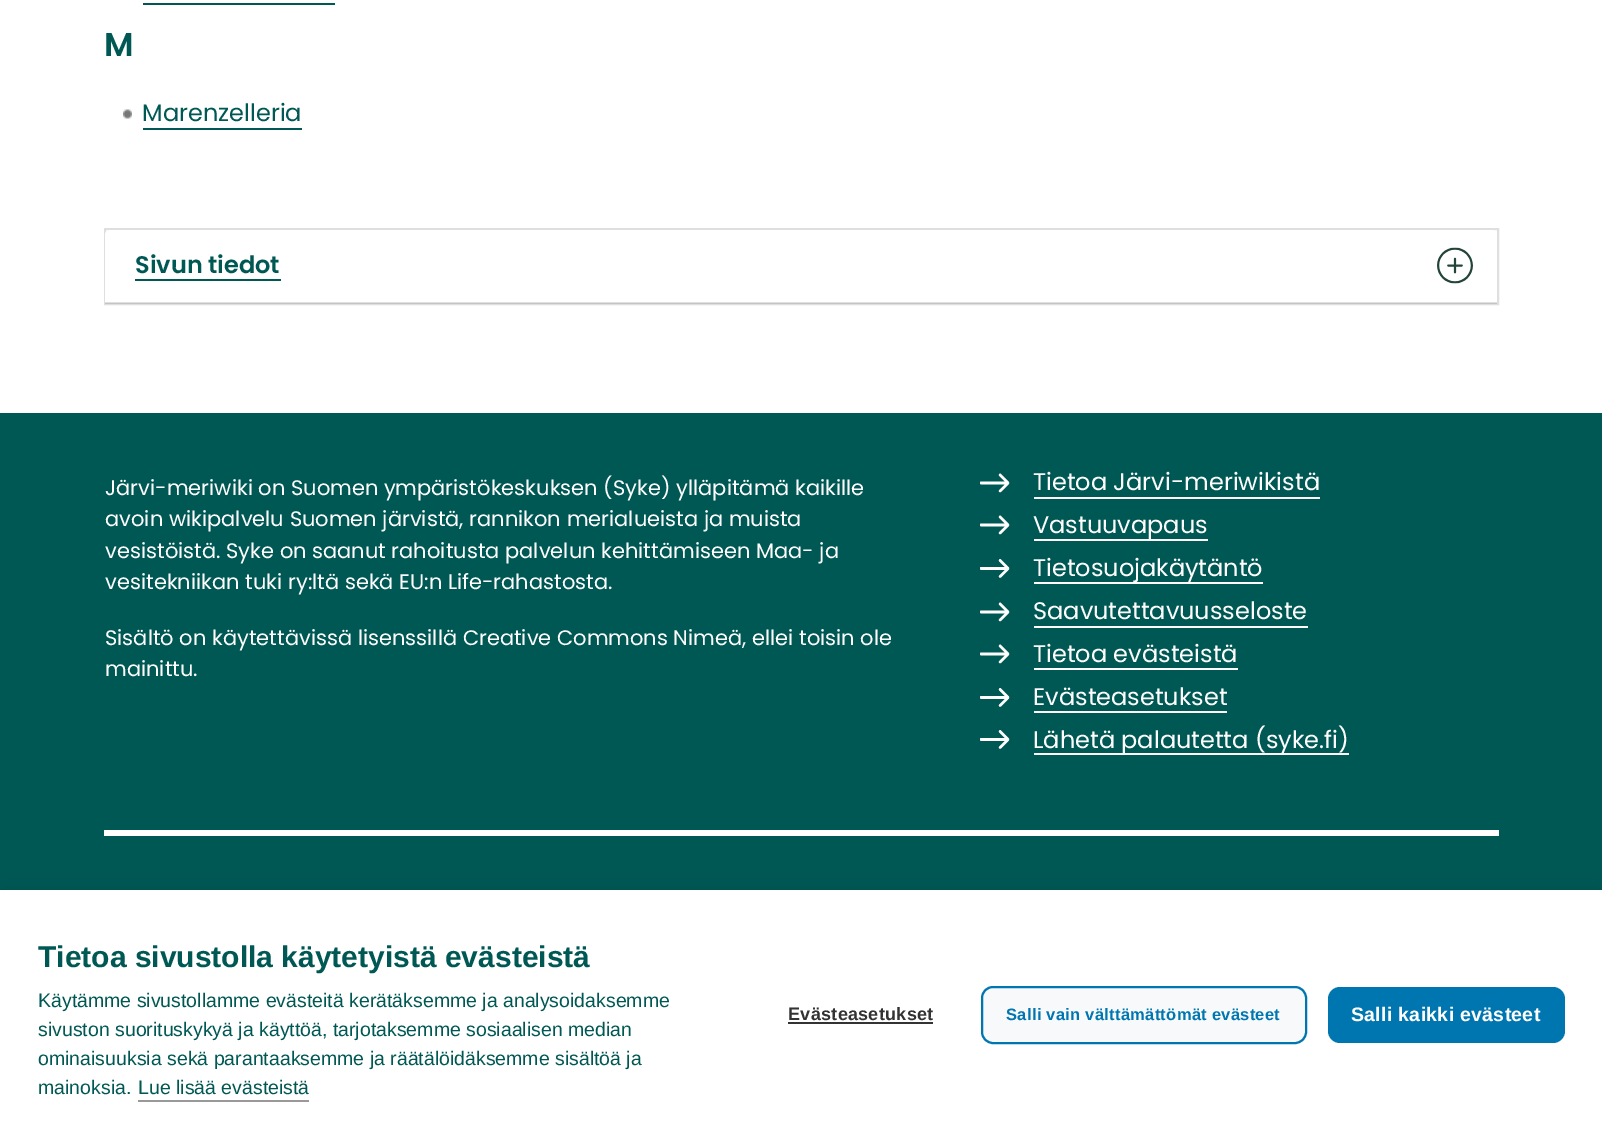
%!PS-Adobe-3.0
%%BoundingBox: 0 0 1602 1139
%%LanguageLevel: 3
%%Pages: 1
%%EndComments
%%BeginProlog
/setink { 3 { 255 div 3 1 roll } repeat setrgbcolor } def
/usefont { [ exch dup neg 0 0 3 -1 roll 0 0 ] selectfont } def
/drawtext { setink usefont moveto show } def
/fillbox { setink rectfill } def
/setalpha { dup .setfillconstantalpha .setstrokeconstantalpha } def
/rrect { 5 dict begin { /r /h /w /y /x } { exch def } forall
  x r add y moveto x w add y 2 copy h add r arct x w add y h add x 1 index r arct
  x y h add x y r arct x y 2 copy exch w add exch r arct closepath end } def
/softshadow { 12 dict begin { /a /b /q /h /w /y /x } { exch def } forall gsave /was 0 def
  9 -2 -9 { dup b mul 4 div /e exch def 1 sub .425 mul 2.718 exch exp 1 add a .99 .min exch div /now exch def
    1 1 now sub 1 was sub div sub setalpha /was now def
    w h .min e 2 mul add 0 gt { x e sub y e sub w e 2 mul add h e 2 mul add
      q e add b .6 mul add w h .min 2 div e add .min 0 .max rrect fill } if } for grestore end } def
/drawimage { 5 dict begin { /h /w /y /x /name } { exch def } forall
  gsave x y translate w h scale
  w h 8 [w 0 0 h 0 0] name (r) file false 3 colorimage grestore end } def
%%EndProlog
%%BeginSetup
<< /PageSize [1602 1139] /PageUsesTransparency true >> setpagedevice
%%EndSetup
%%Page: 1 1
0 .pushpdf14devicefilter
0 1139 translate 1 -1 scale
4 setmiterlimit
0 0 1602 1139 255 255 255 fillbox
143 3 192 2 0 88 84 fillbox
(M) 104 56 /Poppins-SemiBold 33 0 88 84 drawtext
(assets/img1.rgb) 123 109 9 10 drawimage
(Marenzelleria) 142 121 /Poppins-Regular 24 0 88 84 drawtext
143 128 159 2 0 88 84 fillbox
223 223 223 setink
2 setlinewidth
105 229 1393 75 rectstroke
255 255 255 setink
110 230 moveto 1492 230 lineto 1495 230 1497 232 1497 235 curveto 1497 303 lineto 105 303 lineto 105 235 lineto 105 232 107 230 110 230 curveto closepath fill
0.12 setalpha
105 302 1392 2 0 0 0 fillbox
1 setalpha
(Sivun tiedot) 135 273 /Poppins-SemiBold 24 0 88 84 drawtext
135 279 146 2 0 88 84 fillbox
(assets/img2.rgb) 1437 247 36 37 drawimage
0 413 1602 477 0 88 84 fillbox
(Järvi-meriwiki on Suomen ympäristökeskuksen \(Syke\) ylläpitämä kaikille) 105 495 /Poppins-Regular 21 255 255 255 drawtext
(avoin wikipalvelu Suomen järvistä, rannikon merialueista ja muista) 105 526 /Poppins-Regular 21 255 255 255 drawtext
(vesistöistä. Syke on saanut rahoitusta palvelun kehittämiseen Maa- ja) 105 558 /Poppins-Regular 21 255 255 255 drawtext
(vesitekniikan tuki ry:ltä sekä EU:n Life-rahastosta.) 105 589 /Poppins-Regular 21 255 255 255 drawtext
(Sisältö on käytettävissä lisenssillä Creative Commons Nimeä, ellei toisin ole) 105 645 /Poppins-Regular 21 255 255 255 drawtext
(mainittu.) 105 676 /Poppins-Regular 21 255 255 255 drawtext
(assets/img3.rgb) 980 473 30 20 drawimage
(Tietoa Järvi-meriwikistä) 1033 490 /Poppins-Regular 24 255 255 255 drawtext
1034 497 286 2 255 255 255 fillbox
(assets/img3.rgb) 980 515 30 20 drawimage
1034 539 174 2 255 255 255 fillbox
(Vastuuvapaus) 1033 533 /Poppins-Regular 24 255 255 255 drawtext
(assets/img4.rgb) 980 559 30 19 drawimage
1034 582 229 2 255 255 255 fillbox
(Tietosuojakäytäntö) 1033 576 /Poppins-Regular 24 255 255 255 drawtext
(assets/img5.rgb) 980 602 30 20 drawimage
(Saavutettavuusseloste) 1033 619 /Poppins-Regular 24 255 255 255 drawtext
1034 626 274 2 255 255 255 fillbox
(assets/img3.rgb) 980 644 30 20 drawimage
(Tietoa evästeistä) 1033 662 /Poppins-Regular 24 255 255 255 drawtext
1034 668 204 2 255 255 255 fillbox
(assets/img4.rgb) 980 688 30 19 drawimage
(Evästeasetukset) 1033 705 /Poppins-Regular 24 255 255 255 drawtext
1034 711 193 2 255 255 255 fillbox
(assets/img4.rgb) 980 730 30 19 drawimage
1034 753 315 2 255 255 255 fillbox
(Lähetä palautetta \(syke.fi\)) 1033 748 /Poppins-Regular 24 255 255 255 drawtext
104 830 1395 6 255 255 255 fillbox
0 0 0 setink
0 890 1602 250 0 15 0.1 softshadow
0 890 1602 249 255 255 255 fillbox
gsave
38 927 664 50 rectclip
(Tietoa sivustolla käytetyistä evästeistä) 38 967 /LiberationSans-Bold 30 0 88 84 drawtext
grestore
(Käytämme sivustollamme evästeitä kerätäksemme ja analysoidaksemme) 38 1007 /LiberationSans-Regular 19.5 0 88 84 drawtext
(sivuston suorituskykyä ja käyttöä, tarjotaksemme sosiaalisen median) 38 1036 /LiberationSans-Regular 19.5 0 88 84 drawtext
(ominaisuuksia sekä parantaaksemme ja räätälöidäksemme sisältöä ja) 38 1065 /LiberationSans-Regular 19.5 0 88 84 drawtext
(mainoksia.) 38 1094 /LiberationSans-Regular 19.5 0 88 84 drawtext
(Lue lisää evästeistä) 138 1094 /LiberationSans-Regular 19.5 0 88 84 drawtext
138 1100 171 2 153 153 153 fillbox
/LiberationSans-Bold 18 usefont
51 51 51 setink
788 1020 moveto 0.3 0 (Evästeasetukset) ashow
788 1022 145 2 51 51 51 fillbox
248 249 250 setink
982 987 324 56 11 rrect gsave fill grestore
0 118 176 setink
stroke
/LiberationSans-Bold 16.5 usefont
1006 1020 moveto 0.3 0 (Salli vain välttämättömät evästeet) ashow
1328 987 237 56 12 rrect fill
/LiberationSans-Bold 19.5 usefont
255 255 255 setink
1351 1021 moveto 0.3 0 (Salli kaikki evästeet) ashow
.poppdf14devicefilter showpage
%%EOF
